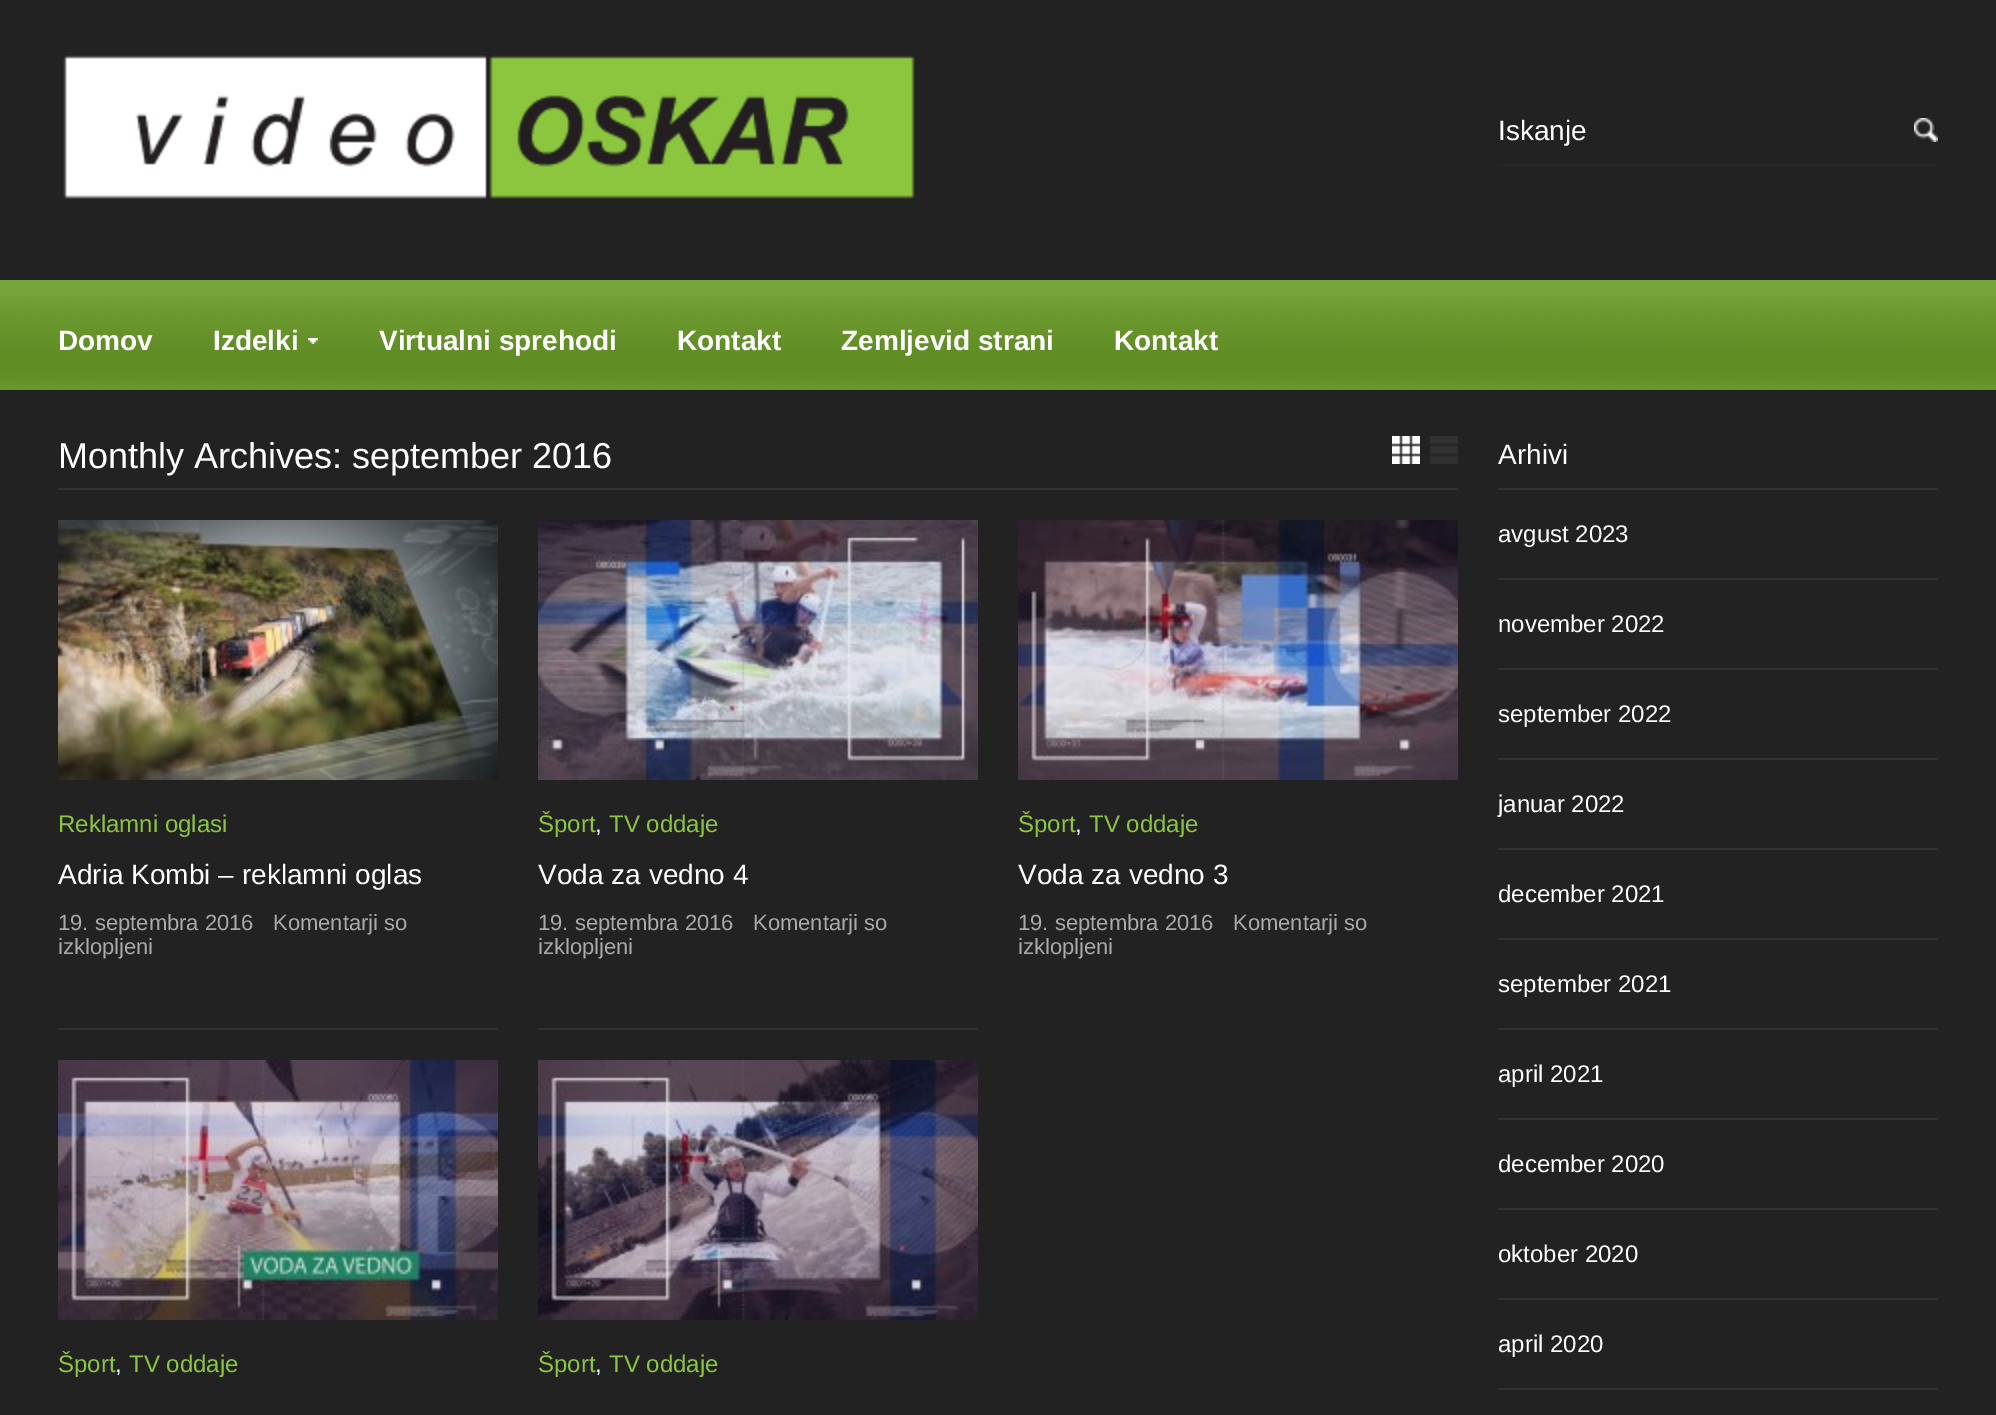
%!PS-Adobe-3.0
%%BoundingBox: 0 0 1996 1415
%%LanguageLevel: 3
%%Pages: 1
%%EndComments
%%BeginProlog
/setink { 3 { 255 div 3 1 roll } repeat setrgbcolor } def
/usefont { [ exch dup neg 0 0 3 -1 roll 0 0 ] selectfont } def
/drawtext { setink usefont moveto show } def
/fillbox { setink rectfill } def
/drawimage { 5 dict begin { /h /w /y /x /name } { exch def } forall
  gsave x y translate w h scale
  w h 8 [w 0 0 h 0 0] name (r) file false 3 colorimage grestore end } def
%%EndProlog
%%BeginSetup
<< /PageSize [1996 1415] >> setpagedevice
%%EndSetup
%%Page: 1 1
0 1415 translate 1 -1 scale
4 setmiterlimit
0 0 1996 1415 34 34 34 fillbox
(assets/img1.rgb) 63 55 852 144 drawimage
(assets/img2.rgb) 1914 118 24 24 drawimage
1498 164 440 2 38 38 38 fillbox
(Iskanje) 1498 140 /LiberationSans-Regular 28 255 255 255 drawtext
(assets/img4.rgb) 0 296 1996 94 drawimage
(Domov) 58 350 /LiberationSans-Bold 28 255 255 255 drawtext
(Izdelki) 213 350 /LiberationSans-Bold 28 255 255 255 drawtext
(assets/img3.rgb) 308 338 10 6 drawimage
(Virtualni sprehodi) 379 350 /LiberationSans-Bold 28 255 255 255 drawtext
(Kontakt) 677 350 /LiberationSans-Bold 28 255 255 255 drawtext
(Zemljevid strani) 841 350 /LiberationSans-Bold 28 255 255 255 drawtext
(Kontakt) 1114 350 /LiberationSans-Bold 28 255 255 255 drawtext
0 280 1996 16 119 165 57 fillbox
58 488 1400 2 49 49 49 fillbox
(Monthly Archives: september 2016) 58 468 /LiberationSans-Regular 36 255 255 255 drawtext
(assets/img5.rgb) 1392 436 28 28 drawimage
(assets/img6.rgb) 1430 436 28 28 drawimage
1498 488 440 2 49 49 49 fillbox
(Arhivi) 1498 464 /LiberationSans-Regular 28 255 255 255 drawtext
1498 578 440 2 49 49 49 fillbox
(avgust 2023) 1498 542 /LiberationSans-Regular 24 255 255 255 drawtext
1498 668 440 2 49 49 49 fillbox
(november 2022) 1498 632 /LiberationSans-Regular 24 255 255 255 drawtext
1498 758 440 2 49 49 49 fillbox
(september 2022) 1498 722 /LiberationSans-Regular 24 255 255 255 drawtext
1498 848 440 2 49 49 49 fillbox
(januar 2022) 1498 812 /LiberationSans-Regular 24 255 255 255 drawtext
1498 938 440 2 49 49 49 fillbox
(december 2021) 1498 902 /LiberationSans-Regular 24 255 255 255 drawtext
1498 1028 440 2 49 49 49 fillbox
(september 2021) 1498 992 /LiberationSans-Regular 24 255 255 255 drawtext
1498 1118 440 2 49 49 49 fillbox
(april 2021) 1498 1082 /LiberationSans-Regular 24 255 255 255 drawtext
1498 1208 440 2 49 49 49 fillbox
(december 2020) 1498 1172 /LiberationSans-Regular 24 255 255 255 drawtext
1498 1298 440 2 49 49 49 fillbox
(oktober 2020) 1498 1262 /LiberationSans-Regular 24 255 255 255 drawtext
1498 1388 440 2 49 49 49 fillbox
(april 2020) 1498 1352 /LiberationSans-Regular 24 255 255 255 drawtext
(assets/img7.rgb) 58 520 440 260 drawimage
(Reklamni oglasi) 58 832 /LiberationSans-Regular 24 140 198 63 drawtext
(Adria Kombi – reklamni oglas) 58 884 /LiberationSans-Regular 28 255 255 255 drawtext
(19. septembra 2016) 58 930 /LiberationSans-Regular 22 170 170 170 drawtext
(Komentarji so) 273 930 /LiberationSans-Regular 22 170 170 170 drawtext
(izklopljeni) 58 954 /LiberationSans-Regular 22 170 170 170 drawtext
(assets/img8.rgb) 538 520 440 260 drawimage
(Šport) 538 832 /LiberationSans-Regular 24 140 198 63 drawtext
(,) 595 832 /LiberationSans-Regular 24 255 255 255 drawtext
(TV oddaje) 609 832 /LiberationSans-Regular 24 140 198 63 drawtext
(Voda za vedno 4) 538 884 /LiberationSans-Regular 28 255 255 255 drawtext
(19. septembra 2016) 538 930 /LiberationSans-Regular 22 170 170 170 drawtext
(Komentarji so) 753 930 /LiberationSans-Regular 22 170 170 170 drawtext
(izklopljeni) 538 954 /LiberationSans-Regular 22 170 170 170 drawtext
(assets/img9.rgb) 1018 520 440 260 drawimage
(Šport) 1018 832 /LiberationSans-Regular 24 140 198 63 drawtext
(,) 1075 832 /LiberationSans-Regular 24 255 255 255 drawtext
(TV oddaje) 1089 832 /LiberationSans-Regular 24 140 198 63 drawtext
(Voda za vedno 3) 1018 884 /LiberationSans-Regular 28 255 255 255 drawtext
(19. septembra 2016) 1018 930 /LiberationSans-Regular 22 170 170 170 drawtext
(Komentarji so) 1233 930 /LiberationSans-Regular 22 170 170 170 drawtext
(izklopljeni) 1018 954 /LiberationSans-Regular 22 170 170 170 drawtext
58 1028 440 2 49 49 49 fillbox
(assets/img10.rgb) 58 1060 440 260 drawimage
(Šport) 58 1372 /LiberationSans-Regular 24 140 198 63 drawtext
(,) 115 1372 /LiberationSans-Regular 24 255 255 255 drawtext
(TV oddaje) 129 1372 /LiberationSans-Regular 24 140 198 63 drawtext
538 1028 440 2 49 49 49 fillbox
(assets/img11.rgb) 538 1060 440 260 drawimage
(Šport) 538 1372 /LiberationSans-Regular 24 140 198 63 drawtext
(,) 595 1372 /LiberationSans-Regular 24 255 255 255 drawtext
(TV oddaje) 609 1372 /LiberationSans-Regular 24 140 198 63 drawtext
showpage
%%EOF
